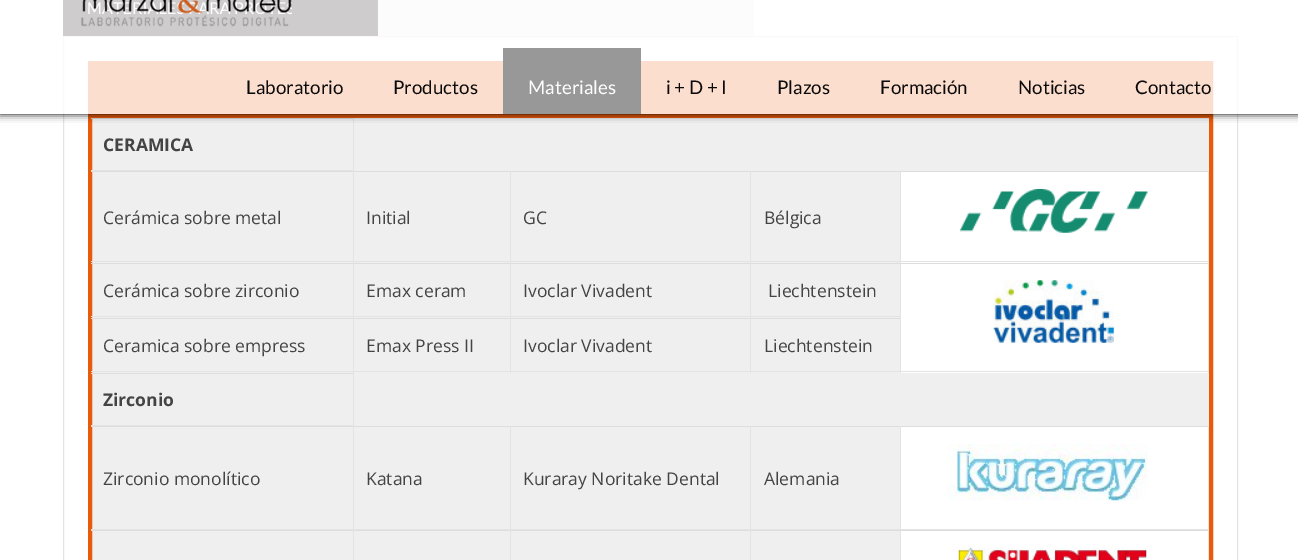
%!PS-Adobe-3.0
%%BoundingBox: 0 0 1298 560
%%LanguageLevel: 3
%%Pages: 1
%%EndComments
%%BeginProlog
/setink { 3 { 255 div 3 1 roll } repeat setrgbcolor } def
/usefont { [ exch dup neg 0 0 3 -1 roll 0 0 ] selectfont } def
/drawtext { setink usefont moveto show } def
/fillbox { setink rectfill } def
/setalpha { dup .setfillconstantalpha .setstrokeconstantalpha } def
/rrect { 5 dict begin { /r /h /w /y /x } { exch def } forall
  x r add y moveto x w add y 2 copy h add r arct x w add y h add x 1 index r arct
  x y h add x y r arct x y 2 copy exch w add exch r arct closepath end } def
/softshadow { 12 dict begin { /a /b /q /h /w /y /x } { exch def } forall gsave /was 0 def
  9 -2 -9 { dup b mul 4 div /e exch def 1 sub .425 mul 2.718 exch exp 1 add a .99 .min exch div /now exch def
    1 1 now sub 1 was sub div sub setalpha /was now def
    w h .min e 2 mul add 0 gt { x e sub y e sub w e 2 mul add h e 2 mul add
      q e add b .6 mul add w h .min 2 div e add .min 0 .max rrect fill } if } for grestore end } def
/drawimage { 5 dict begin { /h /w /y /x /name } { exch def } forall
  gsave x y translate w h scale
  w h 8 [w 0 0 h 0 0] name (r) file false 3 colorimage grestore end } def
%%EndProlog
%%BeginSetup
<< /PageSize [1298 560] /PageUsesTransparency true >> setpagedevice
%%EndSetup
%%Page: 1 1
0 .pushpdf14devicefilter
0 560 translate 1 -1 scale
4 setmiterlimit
0 0 1298 560 255 255 255 fillbox
63 0 315 36 10 0 0 fillbox
378 0 376 36 239 239 239 fillbox
227 227 227 setink
63.5 36.5 1174 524 rectstroke
92 118 1117 442 239 239 239 fillbox
234 90 11 setink
4 setlinewidth
90 63 1121 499 rectstroke
92 65 1117 53 234 90 11 fillbox
91 118 263 1 221 221 221 fillbox
353 118 1 53 227 227 227 fillbox
gsave
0 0 moveto 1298 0 lineto 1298 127 lineto 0 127 lineto closepath 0 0 moveto 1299 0 lineto 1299 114 lineto 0 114 lineto closepath eoclip newpath
0 0 0 setink
0 0 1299 114 0 4 1 softshadow
grestore
0.8 setalpha
0 0 1298 114 255 255 255 fillbox
1 setalpha
(assets/img1.rgb) 81 0 211 27 drawimage
(Laboratorio) 246 94 /Lato-Regular 18.75 10 10 10 drawtext
(Productos) 393 94 /Lato-Regular 18.75 10 10 10 drawtext
503 48 138 66 152 152 152 fillbox
(Materiales) 528 94 /Lato-Regular 18.75 255 255 255 drawtext
(i + D + I) 666 94 /Lato-Regular 18.75 10 10 10 drawtext
(Plazos) 777 94 /Lato-Regular 18.75 10 10 10 drawtext
(Formación) 880 94 /Lato-Regular 18.75 10 10 10 drawtext
(Noticias) 1018 94 /Lato-Regular 18.75 10 10 10 drawtext
(Contacto) 1135 94 /Lato-Regular 18.75 10 10 10 drawtext
91 170 263 1 227 227 227 fillbox
(CERAMICA) 103 151 /OpenSans-Bold 17.5 68 68 68 drawtext
91 171 1118 1 221 221 221 fillbox
353 171 1 92 227 227 227 fillbox
91 261 263 1 227 227 227 fillbox
(Cerámica sobre metal) 103 224 /OpenSans-Regular 17.5 68 68 68 drawtext
510 171 1 92 227 227 227 fillbox
354 261 157 1 227 227 227 fillbox
(Initial) 366 224 /OpenSans-Regular 17.5 68 68 68 drawtext
750 171 1 92 227 227 227 fillbox
511 261 240 1 227 227 227 fillbox
(GC) 523 224 /OpenSans-Regular 17.5 68 68 68 drawtext
900 171 1 92 227 227 227 fillbox
751 261 150 1 227 227 227 fillbox
(Bélgica) 764 224 /OpenSans-Regular 17.5 68 68 68 drawtext
901 172 307 91 255 255 255 fillbox
1208 171 1 92 227 227 227 fillbox
901 261 308 1 227 227 227 fillbox
(assets/img2.rgb) 960 189 188 44 drawimage
91 263 1118 1 221 221 221 fillbox
353 263 1 55 227 227 227 fillbox
91 316 263 1 227 227 227 fillbox
(Cerámica sobre zirconio) 103 297 /OpenSans-Regular 17.5 68 68 68 drawtext
510 263 1 55 227 227 227 fillbox
354 316 157 1 227 227 227 fillbox
(Emax ceram) 366 297 /OpenSans-Regular 17.5 68 68 68 drawtext
750 263 1 55 227 227 227 fillbox
511 316 240 1 227 227 227 fillbox
(Ivoclar Vivadent) 523 297 /OpenSans-Regular 17.5 68 68 68 drawtext
900 263 1 55 227 227 227 fillbox
751 316 150 1 227 227 227 fillbox
(Liechtenstein) 768 297 /OpenSans-Regular 17.5 68 68 68 drawtext
901 264 307 109 255 255 255 fillbox
1208 263 1 110 227 227 227 fillbox
901 371 308 1 227 227 227 fillbox
(assets/img3.rgb) 993 280 121 63 drawimage
91 318 810 1 221 221 221 fillbox
353 318 1 55 227 227 227 fillbox
91 371 263 1 227 227 227 fillbox
(Ceramica sobre empress) 103 352 /OpenSans-Regular 17.5 68 68 68 drawtext
510 318 1 55 227 227 227 fillbox
354 371 157 1 227 227 227 fillbox
(Emax Press II) 366 352 /OpenSans-Regular 17.5 68 68 68 drawtext
750 318 1 55 227 227 227 fillbox
511 371 240 1 227 227 227 fillbox
(Ivoclar Vivadent) 523 352 /OpenSans-Regular 17.5 68 68 68 drawtext
900 318 1 55 227 227 227 fillbox
751 371 150 1 227 227 227 fillbox
(Liechtenstein) 764 352 /OpenSans-Regular 17.5 68 68 68 drawtext
91 373 263 1 221 221 221 fillbox
353 373 1 53 227 227 227 fillbox
91 425 263 1 227 227 227 fillbox
(Zirconio) 103 406 /OpenSans-Bold 17.5 68 68 68 drawtext
91 426 1118 1 221 221 221 fillbox
353 426 1 104 227 227 227 fillbox
91 529 263 1 227 227 227 fillbox
(Zirconio monolítico) 103 485 /OpenSans-Regular 17.5 68 68 68 drawtext
510 426 1 104 227 227 227 fillbox
354 529 157 1 227 227 227 fillbox
(Katana) 366 485 /OpenSans-Regular 17.5 68 68 68 drawtext
750 426 1 104 227 227 227 fillbox
511 529 240 1 227 227 227 fillbox
(Kuraray Noritake Dental) 523 485 /OpenSans-Regular 17.5 68 68 68 drawtext
900 426 1 104 227 227 227 fillbox
751 529 150 1 227 227 227 fillbox
(Alemania) 764 485 /OpenSans-Regular 17.5 68 68 68 drawtext
901 427 307 102 255 255 255 fillbox
1208 426 1 104 227 227 227 fillbox
901 529 308 1 227 227 227 fillbox
(assets/img4.rgb) 947 444 201 57 drawimage
91 530 1118 1 221 221 221 fillbox
353 530 1 30 227 227 227 fillbox
510 530 1 30 227 227 227 fillbox
750 530 1 30 227 227 227 fillbox
900 530 1 30 227 227 227 fillbox
901 531 307 29 255 255 255 fillbox
1208 530 1 30 227 227 227 fillbox
(assets/img5.rgb) 958 547 189 13 drawimage
.poppdf14devicefilter showpage
%%EOF
